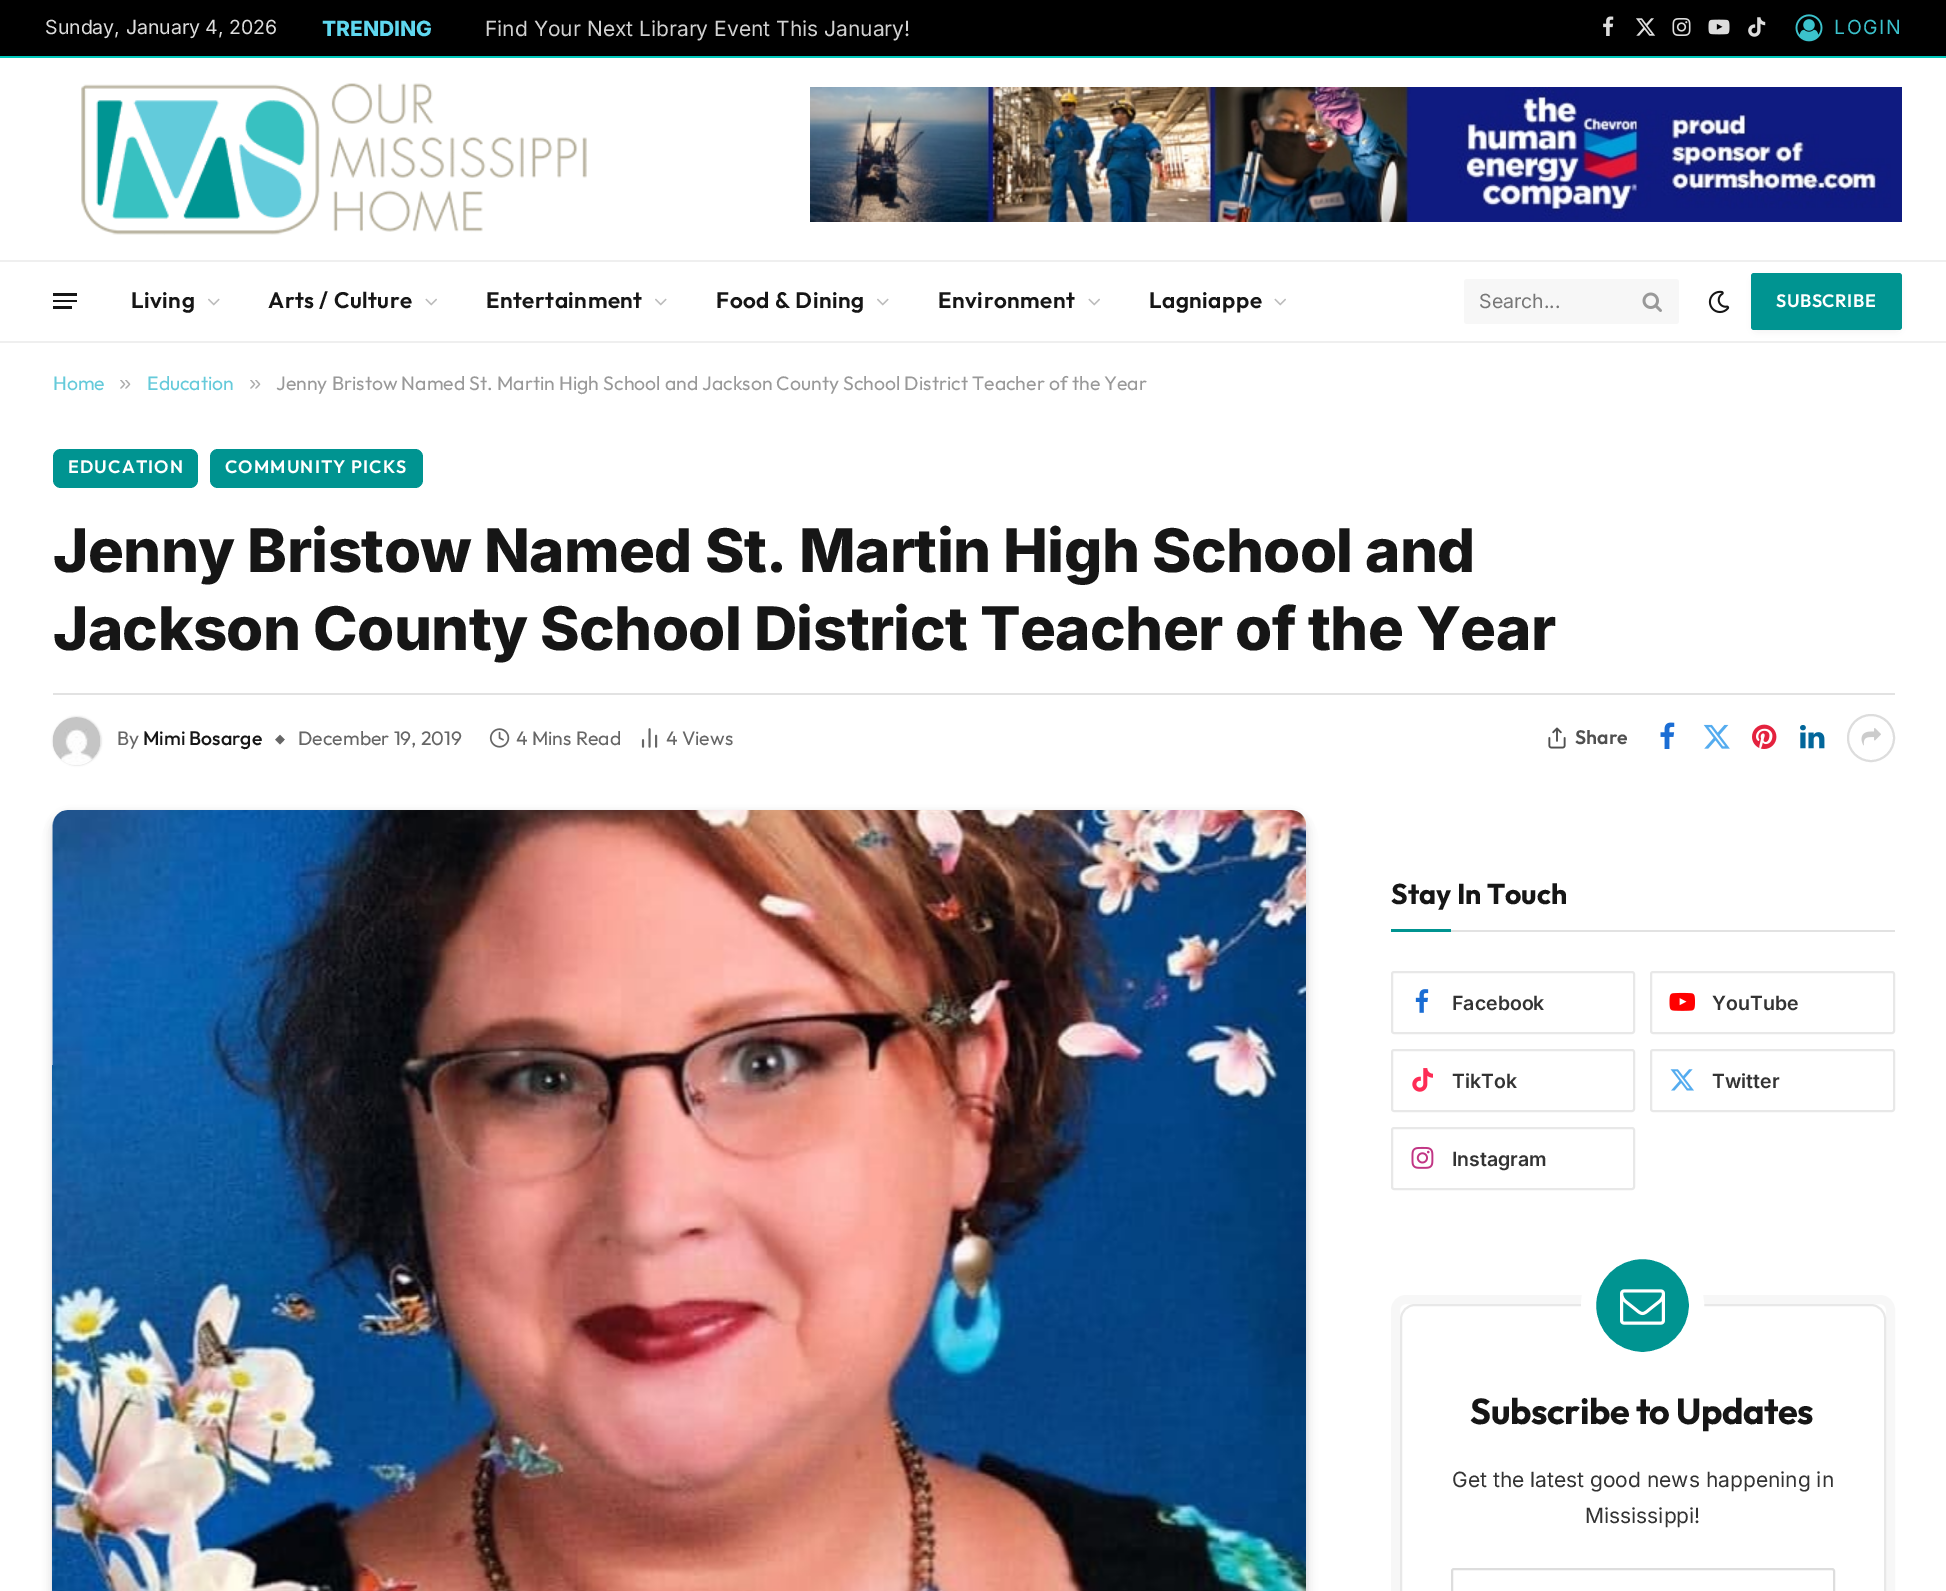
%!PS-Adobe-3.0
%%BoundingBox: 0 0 1946 1591
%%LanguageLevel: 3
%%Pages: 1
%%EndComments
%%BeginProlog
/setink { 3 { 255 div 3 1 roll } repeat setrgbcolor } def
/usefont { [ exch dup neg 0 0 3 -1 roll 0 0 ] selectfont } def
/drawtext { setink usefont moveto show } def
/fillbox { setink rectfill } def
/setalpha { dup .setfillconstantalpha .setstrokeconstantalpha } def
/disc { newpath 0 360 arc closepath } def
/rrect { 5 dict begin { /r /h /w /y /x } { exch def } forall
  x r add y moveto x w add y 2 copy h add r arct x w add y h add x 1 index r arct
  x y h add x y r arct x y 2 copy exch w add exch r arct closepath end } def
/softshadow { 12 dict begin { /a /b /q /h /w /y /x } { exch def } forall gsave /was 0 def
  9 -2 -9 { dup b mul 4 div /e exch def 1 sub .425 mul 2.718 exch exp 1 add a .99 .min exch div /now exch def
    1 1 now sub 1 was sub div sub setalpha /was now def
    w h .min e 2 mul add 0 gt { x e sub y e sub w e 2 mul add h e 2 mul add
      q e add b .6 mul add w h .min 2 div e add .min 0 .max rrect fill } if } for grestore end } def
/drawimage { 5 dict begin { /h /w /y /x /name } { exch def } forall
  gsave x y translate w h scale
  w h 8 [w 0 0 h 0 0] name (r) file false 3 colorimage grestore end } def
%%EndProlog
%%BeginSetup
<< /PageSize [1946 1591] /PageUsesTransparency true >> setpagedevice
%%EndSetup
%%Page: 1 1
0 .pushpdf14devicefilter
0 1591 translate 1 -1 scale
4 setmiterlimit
0 0 1946 1591 255 255 255 fillbox
0 0 1946 56 0 0 0 fillbox
0 56 1946 2 0 201 188 fillbox
(Sunday, January 4, 2026) 45 34 /Inter-Regular 19.5 221 221 221 drawtext
(TRENDING) 322 36 /Inter-ExtraBold 21 95 215 239 drawtext
(Find Your Next Library Event This January!) 485 36 /Inter-Regular 21 209 209 209 drawtext
(assets/img1.rgb) 1603 16 11 20 drawimage
(assets/img2.rgb) 1636 18 20 18 drawimage
(assets/img3.rgb) 1672 18 19 18 drawimage
(assets/img4.rgb) 1708 19 22 16 drawimage
(assets/img5.rgb) 1748 17 18 20 drawimage
(assets/img6.rgb) 1795 14 28 28 drawimage
/Inter-Regular 19.5 usefont
59 194 204 setink
1834 34 moveto 1.5 0 (LOGIN) ashow
(assets/img7.rgb) 81 83 506 152 drawimage
(assets/img8.rgb) 810 87 1092 135 drawimage
0 260 1946 2 239 239 239 fillbox
0 341 1946 2 239 239 239 fillbox
53 306 19 3 22 22 22 fillbox
53 293 24 3 22 22 22 fillbox
53 300 24 2 22 22 22 fillbox
/Outfit-SemiBold 22.5 usefont
131 308 moveto 0.5 0 (Living) ashow
(assets/img9.rgb) 208 298 12 8 drawimage
268 308 moveto 0.5 0 (Arts / Culture) ashow
(assets/img10.rgb) 425 298 12 8 drawimage
486 308 moveto 0.5 0 (Entertainment) ashow
(assets/img9.rgb) 655 298 12 8 drawimage
716 308 moveto 0.5 0 (Food & Dining) ashow
(assets/img9.rgb) 877 298 12 8 drawimage
938 308 moveto 0.5 0 (Environment) ashow
(assets/img10.rgb) 1088 298 12 8 drawimage
1149 308 moveto 0.5 0 (Lagniappe) ashow
(assets/img10.rgb) 1274 298 12 8 drawimage
247 247 247 setink
1464 279 215 45 3 rrect fill
(Search...) 1479 308 /Inter-Regular 19.5 119 119 119 drawtext
(assets/img11.rgb) 1642 292 20 20 drawimage
(assets/img12.rgb) 1708 290 22 24 drawimage
0 0 0 setink
1757 282 139 45 0 5 0.16 softshadow
0 148 145 setink
1751 273 151 57 3 rrect fill
/Outfit-SemiBold 18 usefont
255 255 255 setink
1776 307 moveto 0.5 0 (SUBSCRIBE) ashow
(Home) 53 390 /Outfit-Regular 19.5 101 202 218 drawtext
(») 119 390 /LiberationSans-Regular 22 173 173 173 drawtext
(Education) 147 390 /Outfit-Regular 19.5 101 202 218 drawtext
(») 249 390 /LiberationSans-Regular 22 173 173 173 drawtext
(Jenny Bristow Named St. Martin High School and Jackson County School District Teacher of the Year) 276 390 /Outfit-Regular 19.5 153 153 153 drawtext
0 148 145 setink
53 449 145 39 8 rrect fill
/Outfit-SemiBold 18 usefont
255 255 255 setink
68 473 moveto 1.1 0 (EDUCATION) ashow
0 148 145 setink
210 449 213 39 8 rrect fill
255 255 255 setink
225 473 moveto 1.1 0 (COMMUNITY PICKS) ashow
/Inter-ExtraBold 60 usefont
22 22 22 setink
53 572 moveto -0.6 0 (Jenny Bristow Named St. Martin High School and) ashow
53 650 moveto -0.6 0 (Jackson County School District Teacher of the Year) ashow
53 693 1842 2 226 226 226 fillbox
0 0 0 setink
53 717 48 48 24 1 0.2 softshadow
(assets/img13.rgb) 52 717 49 48 drawimage
(By) 117 745 /Outfit-Regular 19.5 102 102 102 drawtext
(Mimi Bosarge) 143 745 /Outfit-Medium 19.5 22 22 22 drawtext
(◆) 275 743 /DejaVuSans-Regular 13 102 102 102 drawtext
(December 19, 2019) 298 745 /Outfit-Regular 19.5 102 102 102 drawtext
(assets/img14.rgb) 489 728 21 20 drawimage
(4 Mins Read) 516 745 /Outfit-Regular 19.5 102 102 102 drawtext
(assets/img15.rgb) 641 728 17 20 drawimage
(4 Views) 666 745 /Outfit-Regular 19.5 102 102 102 drawtext
(assets/img16.rgb) 1548 727 18 22 drawimage
(Share) 1575 744 /Outfit-SemiBold 19.5 80 80 80 drawtext
(assets/img17.rgb) 1660 722 15 27 drawimage
(assets/img18.rgb) 1703 724 27 25 drawimage
(assets/img19.rgb) 1752 724 25 25 drawimage
(assets/img20.rgb) 1800 725 25 24 drawimage
221 221 221 setink
2 setlinewidth
1871 738 23 disc stroke
(assets/img21.rgb) 1861 728 20 18 drawimage
7 10 25 setink
62 828 1236 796 6 9 0.2 softshadow
54 815 1251 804 14 4.5 0.2 softshadow
(assets/img22.rgb) 52 810 1254 781 drawimage
1451 930 444 2 226 226 226 fillbox
(Stay In Touch) 1391 904 /Outfit-Bold 28.5 22 22 22 drawtext
1391 929 60 3 0 148 145 fillbox
232 232 232 setink
1392 972 242 61 2 rrect stroke
(assets/img23.rgb) 1415 989 14 24 drawimage
(Facebook) 1452 1010 /Inter-SemiBold 19.5 51 51 51 drawtext
232 232 232 setink
1651 972 243 61 2 rrect stroke
(assets/img24.rgb) 1669 992 26 19 drawimage
(YouTube) 1712 1010 /Inter-SemiBold 19.5 51 51 51 drawtext
232 232 232 setink
1392 1050 242 61 2 rrect stroke
(assets/img25.rgb) 1412 1068 21 24 drawimage
(TikTok) 1452 1088 /Inter-SemiBold 19.5 51 51 51 drawtext
232 232 232 setink
1651 1050 243 61 2 rrect stroke
(assets/img26.rgb) 1670 1069 24 22 drawimage
(Twitter) 1712 1088 /Inter-SemiBold 19.5 51 51 51 drawtext
232 232 232 setink
1392 1128 242 61 2 rrect stroke
(assets/img27.rgb) 1411 1146 23 23 drawimage
(Instagram) 1452 1166 /Inter-SemiBold 19.5 51 51 51 drawtext
247 247 247 setink
9 setlinewidth
1395.5 1299.5 495 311 10.5 rrect stroke
232 232 232 setink
2 setlinewidth
1401 1305 484 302 14 rrect stroke
0 148 145 setink
1642.5 1305.5 54 disc gsave fill grestore
255 255 255 setink
15 setlinewidth
stroke
(assets/img28.rgb) 1620 1289 45 36 drawimage
/Outfit-Bold 36 usefont
22 22 22 setink
1470 1424 moveto -0.4 0 (Subscribe to Updates) ashow
(Get the latest good news happening in) 1452 1487 /Inter-Regular 21 51 51 51 drawtext
(Mississippi!) 1585 1523 /Inter-Regular 21 51 51 51 drawtext
221 221 221 setink
2 setlinewidth
1452 1569 382 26 2 rrect stroke
.poppdf14devicefilter showpage
%%EOF
